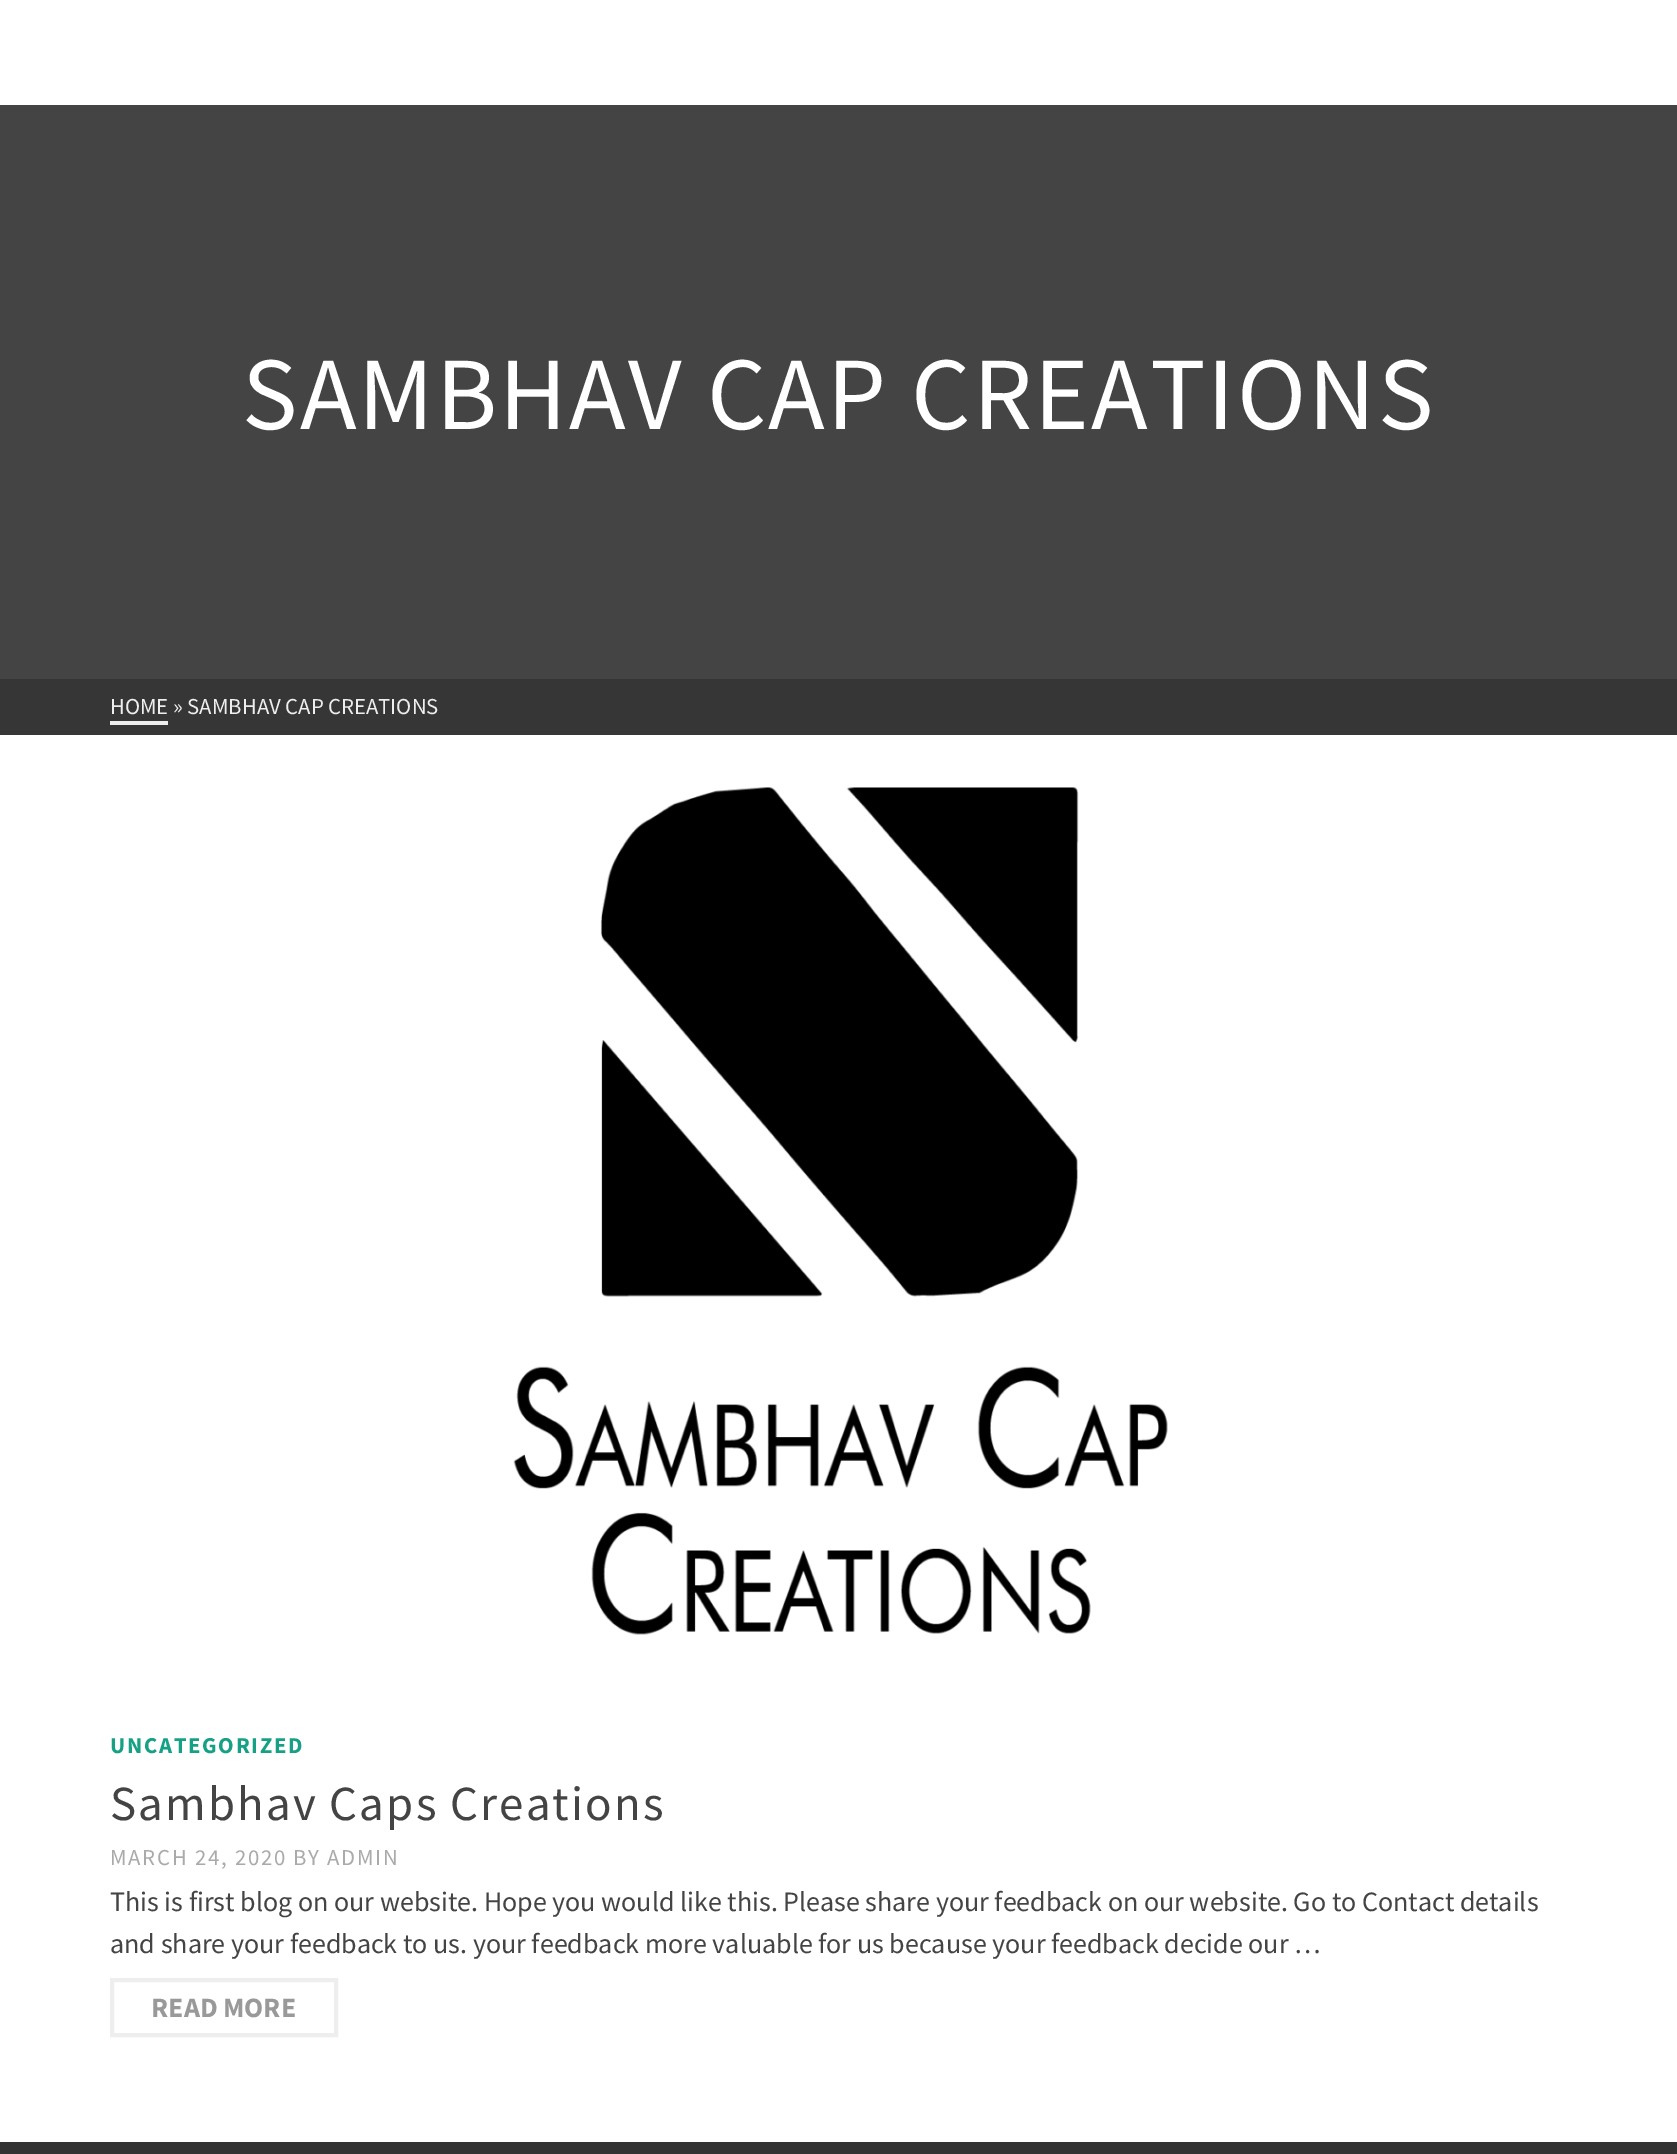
%!PS-Adobe-3.0
%%BoundingBox: 0 0 1677 2154
%%LanguageLevel: 3
%%Pages: 1
%%EndComments
%%BeginProlog
/setink { 3 { 255 div 3 1 roll } repeat setrgbcolor } def
/usefont { [ exch dup neg 0 0 3 -1 roll 0 0 ] selectfont } def
/drawtext { setink usefont moveto show } def
/fillbox { setink rectfill } def
/drawimage { 5 dict begin { /h /w /y /x /name } { exch def } forall
  gsave x y translate w h scale
  w h 8 [w 0 0 h 0 0] name (r) file false 3 colorimage grestore end } def
%%EndProlog
%%BeginSetup
<< /PageSize [1677 2154] >> setpagedevice
%%EndSetup
%%Page: 1 1
0 2154 translate 1 -1 scale
4 setmiterlimit
0 0 1677 2154 255 255 255 fillbox
0 105 1677 574 68 68 68 fillbox
/SourceSansPro-Regular 104.1 usefont
255 255 255 setink
242 429 moveto 2.1 0 (SAMBHAV CAP CREATIONS) ashow
0 679 1677 56 54 54 54 fillbox
(HOME » SAMBHAV CAP CREATIONS) 110 714 /SourceSansPro-Regular 22.75 238 238 238 drawtext
110 721 58 4 238 238 238 fillbox
(assets/img1.rgb) 513 787 655 848 drawimage
/SourceSansPro-Bold 22.75 usefont
22 160 133 setink
110 1753 moveto 1.75 0 (UNCATEGORIZED) ashow
/SourceSansPro-Regular 49 usefont
68 68 68 setink
110 1820 moveto 2.1 0 (Sambhav Caps Creations) ashow
/SourceSansPro-Regular 22.75 usefont
170 170 170 setink
110 1865 moveto 1.75 0 (MARCH 24, 2020 BY ADMIN) ashow
(This is first blog on our website. Hope you would like this. Please share your feedback on our website. Go to Contact details) 110 1911 /SourceSansPro-Regular 28 68 68 68 drawtext
(and share your feedback to us. your feedback more valuable for us because your feedback decide our …) 110 1953 /SourceSansPro-Regular 28 68 68 68 drawtext
238 238 238 setink
4 setlinewidth
112 1980 224 55 rectstroke
(READ MORE) 151 2017 /SourceSansPro-Bold 28 153 153 153 drawtext
0 2142 1677 12 51 51 51 fillbox
showpage
%%EOF
